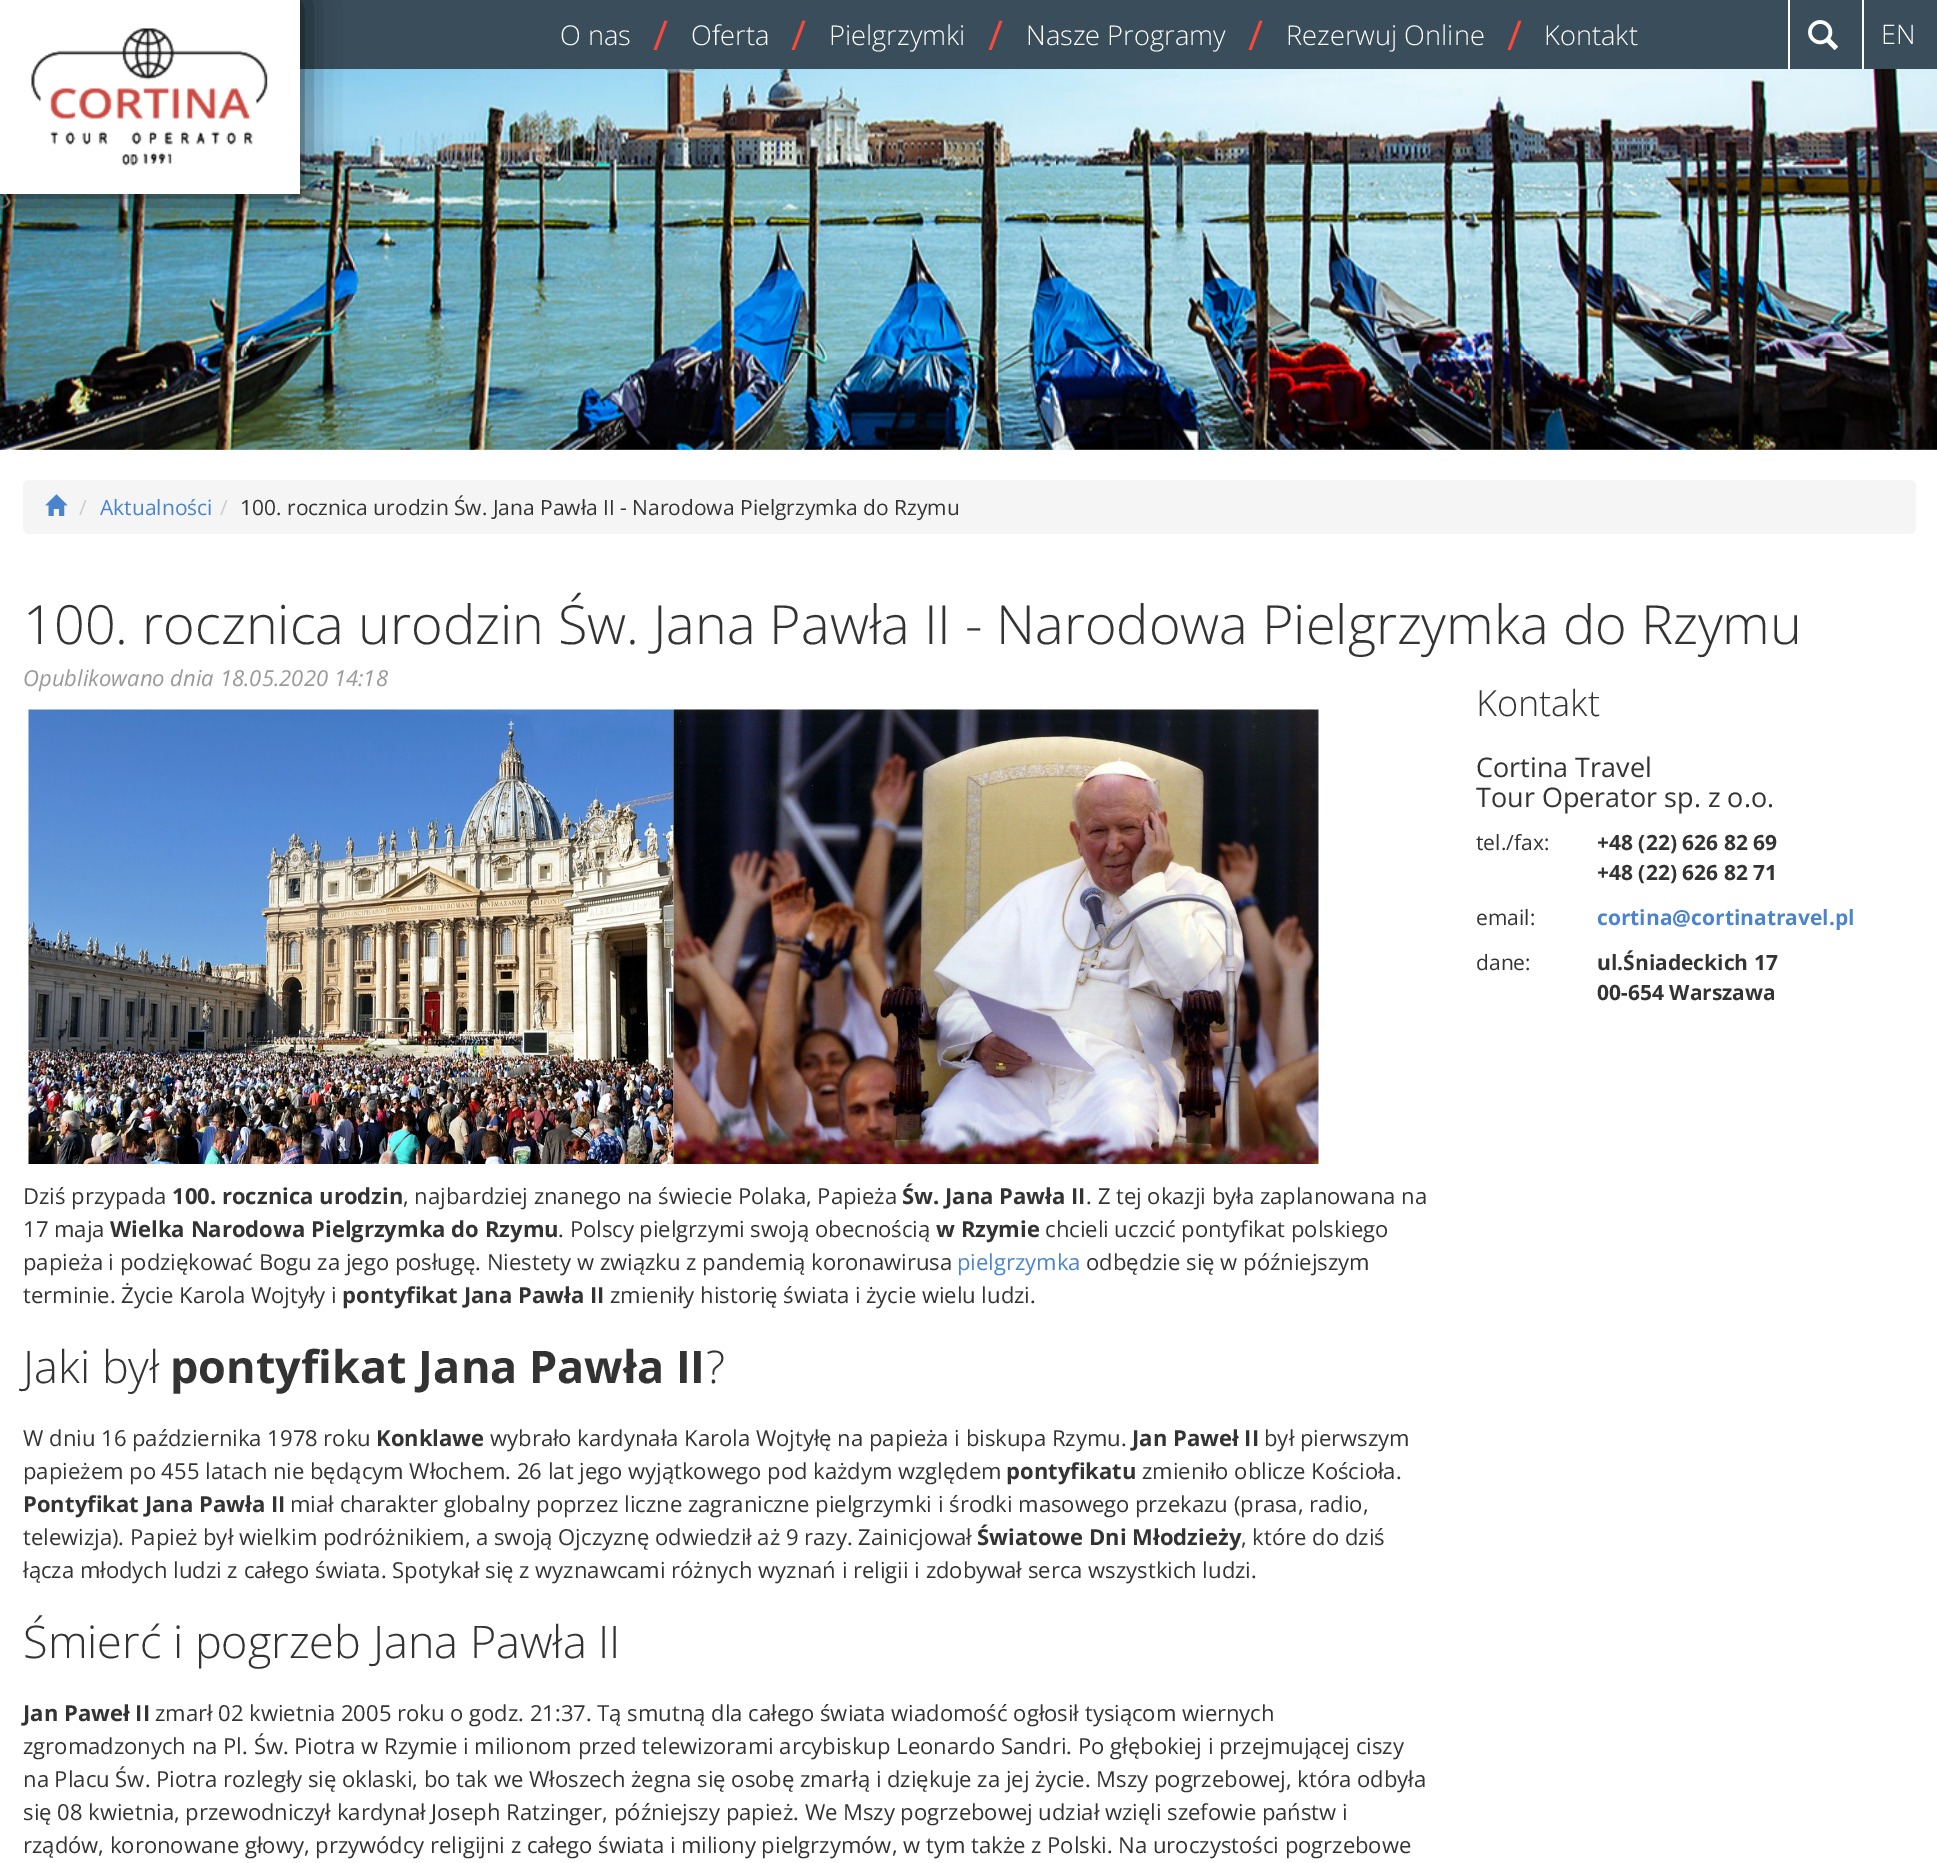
%!PS-Adobe-3.0
%%BoundingBox: 0 0 1937 1863
%%LanguageLevel: 3
%%Pages: 1
%%EndComments
%%BeginProlog
/setink { 3 { 255 div 3 1 roll } repeat setrgbcolor } def
/usefont { [ exch dup neg 0 0 3 -1 roll 0 0 ] selectfont } def
/drawtext { setink usefont moveto show } def
/fillbox { setink rectfill } def
/setalpha { dup .setfillconstantalpha .setstrokeconstantalpha } def
/rrect { 5 dict begin { /r /h /w /y /x } { exch def } forall
  x r add y moveto x w add y 2 copy h add r arct x w add y h add x 1 index r arct
  x y h add x y r arct x y 2 copy exch w add exch r arct closepath end } def
/softshadow { 12 dict begin { /a /b /q /h /w /y /x } { exch def } forall gsave /was 0 def
  9 -2 -9 { dup b mul 4 div /e exch def 1 sub .425 mul 2.718 exch exp 1 add a .99 .min exch div /now exch def
    1 1 now sub 1 was sub div sub setalpha /was now def
    w h .min e 2 mul add 0 gt { x e sub y e sub w e 2 mul add h e 2 mul add
      q e add b .6 mul add w h .min 2 div e add .min 0 .max rrect fill } if } for grestore end } def
/drawimage { 5 dict begin { /h /w /y /x /name } { exch def } forall
  gsave x y translate w h scale
  w h 8 [w 0 0 h 0 0] name (r) file false 3 colorimage grestore end } def
%%EndProlog
%%BeginSetup
<< /PageSize [1937 1863] /PageUsesTransparency true >> setpagedevice
%%EndSetup
%%Page: 1 1
0 .pushpdf14devicefilter
0 1863 translate 1 -1 scale
4 setmiterlimit
0 0 1937 1863 255 255 255 fillbox
300 0 1637 69 57 77 91 fillbox
(assets/img3.rgb) 0 69 1937 381 drawimage
0 0 0 setink
0 0 300 194 0 19 0.8 softshadow
0 0 300 194 255 255 255 fillbox
(assets/img1.rgb) 31 28 237 138 drawimage
(O nas) 560 45 /OpenSans-Light 27.25 255 255 255 drawtext
(/) 653 50 /OpenSans-Regular 41 255 72 60 drawtext
(Oferta) 691 45 /OpenSans-Light 27.25 255 255 255 drawtext
(/) 791 50 /OpenSans-Regular 41 255 72 60 drawtext
(Pielgrzymki) 829 45 /OpenSans-Light 27.25 255 255 255 drawtext
(/) 988 50 /OpenSans-Regular 41 255 72 60 drawtext
(Nasze Programy) 1026 45 /OpenSans-Light 27.25 255 255 255 drawtext
(/) 1248 50 /OpenSans-Regular 41 255 72 60 drawtext
(Rezerwuj Online) 1286 45 /OpenSans-Light 27.25 255 255 255 drawtext
(/) 1507 50 /OpenSans-Regular 41 255 72 60 drawtext
(Kontakt) 1544 45 /OpenSans-Light 27.25 255 255 255 drawtext
1862 0 2 69 255 255 255 fillbox
1788 0 2 69 255 255 255 fillbox
(assets/img2.rgb) 1808 20 30 30 drawimage
(EN) 1881 44 /OpenSans-Light 27 255 255 255 drawtext
245 245 245 setink
23 480 1893 54 6 rrect fill
(assets/img4.rgb) 45 494 23 22 drawimage
(/) 79 515 /OpenSans-Regular 21 204 204 204 drawtext
(Aktualności) 100 515 /OpenSans-Regular 21 75 132 204 drawtext
(/) 220 515 /OpenSans-Regular 21 204 204 204 drawtext
(100. rocznica urodzin Św. Jana Pawła II - Narodowa Pielgrzymka do Rzymu) 240 515 /OpenSans-Regular 21 51 51 51 drawtext
(100. rocznica urodzin Św. Jana Pawła II - Narodowa Pielgrzymka do Rzymu) 23 644 /OpenSans-Light 54 51 51 51 drawtext
(Opublikowano dnia 18.05.2020 14:18) 23 686 /OpenSans-Italic 22.05 153 153 153 drawtext
(assets/img5.rgb) 28 709 646 455 drawimage
(assets/img6.rgb) 673 709 646 455 drawimage
(Dziś przypada) 23 1204 /OpenSans-Regular 22.05 51 51 51 drawtext
(100. rocznica urodzin) 172 1204 /OpenSans-Bold 22.05 51 51 51 drawtext
(, najbardziej znanego na świecie Polaka, Papieża) 403 1204 /OpenSans-Regular 22.05 51 51 51 drawtext
(Św. Jana Pawła II) 902 1204 /OpenSans-Bold 22.05 51 51 51 drawtext
(. Z tej okazji była zaplanowana na) 1086 1204 /OpenSans-Regular 22.05 51 51 51 drawtext
(17 maja) 23 1237 /OpenSans-Regular 22.05 51 51 51 drawtext
(Wielka Narodowa Pielgrzymka do Rzymu) 110 1237 /OpenSans-Bold 22.05 51 51 51 drawtext
(. Polscy pielgrzymi swoją obecnością) 558 1237 /OpenSans-Regular 22.05 51 51 51 drawtext
(w Rzymie) 936 1237 /OpenSans-Bold 22.05 51 51 51 drawtext
(chcieli uczcić pontyfikat polskiego) 1045 1237 /OpenSans-Regular 22.05 51 51 51 drawtext
(papieża i podziękować Bogu za jego posługę. Niestety w związku z pandemią koronawirusa) 23 1270 /OpenSans-Regular 22.05 51 51 51 drawtext
(pielgrzymka) 957 1270 /OpenSans-Regular 22.05 75 132 204 drawtext
(odbędzie się w późniejszym) 1086 1270 /OpenSans-Regular 22.05 51 51 51 drawtext
(terminie. Życie Karola Wojtyły i) 23 1303 /OpenSans-Regular 22.05 51 51 51 drawtext
(pontyfikat Jana Pawła II) 342 1303 /OpenSans-Bold 22.05 51 51 51 drawtext
(zmieniły historię świata i życie wielu ludzi.) 610 1303 /OpenSans-Regular 22.05 51 51 51 drawtext
(Jaki był) 23 1383 /OpenSans-Light 45 51 51 51 drawtext
(pontyfikat Jana Pawła II) 170 1383 /OpenSans-Bold 45 51 51 51 drawtext
(?) 706 1383 /OpenSans-Light 45 51 51 51 drawtext
(W dniu 16 października 1978 roku) 23 1446 /OpenSans-Regular 22.05 51 51 51 drawtext
(Konklawe) 376 1446 /OpenSans-Bold 22.05 51 51 51 drawtext
(wybrało kardynała Karola Wojtyłę na papieża i biskupa Rzymu.) 490 1446 /OpenSans-Regular 22.05 51 51 51 drawtext
(Jan Paweł II) 1132 1446 /OpenSans-Bold 22.05 51 51 51 drawtext
(był pierwszym) 1264 1446 /OpenSans-Regular 22.05 51 51 51 drawtext
(papieżem po 455 latach nie będącym Włochem. 26 lat jego wyjątkowego pod każdym względem) 23 1479 /OpenSans-Regular 22.05 51 51 51 drawtext
(pontyfikatu) 1006 1479 /OpenSans-Bold 22.05 51 51 51 drawtext
(zmieniło oblicze Kościoła.) 1142 1479 /OpenSans-Regular 22.05 51 51 51 drawtext
(Pontyfikat Jana Pawła II) 23 1512 /OpenSans-Bold 22.05 51 51 51 drawtext
(miał charakter globalny poprzez liczne zagraniczne pielgrzymki i środki masowego przekazu \(prasa, radio,) 290 1512 /OpenSans-Regular 22.05 51 51 51 drawtext
(telewizja\). Papież był wielkim podróżnikiem, a swoją Ojczyznę odwiedził aż 9 razy. Zainicjował) 23 1545 /OpenSans-Regular 22.05 51 51 51 drawtext
(Światowe Dni Młodzieży) 977 1545 /OpenSans-Bold 22.05 51 51 51 drawtext
(, które do dziś) 1241 1545 /OpenSans-Regular 22.05 51 51 51 drawtext
(łącza młodych ludzi z całego świata. Spotykał się z wyznawcami różnych wyznań i religii i zdobywał serca wszystkich ludzi.) 23 1578 /OpenSans-Regular 22.05 51 51 51 drawtext
(Śmierć i pogrzeb Jana Pawła II) 23 1658 /OpenSans-Light 45 51 51 51 drawtext
(Jan Paweł II) 23 1721 /OpenSans-Bold 22.05 51 51 51 drawtext
(zmarł 02 kwietnia 2005 roku o godz. 21:37. Tą smutną dla całego świata wiadomość ogłosił tysiącom wiernych) 155 1721 /OpenSans-Regular 22.05 51 51 51 drawtext
(zgromadzonych na Pl. Św. Piotra w Rzymie i milionom przed telewizorami arcybiskup Leonardo Sandri. Po głębokiej i przejmującej ciszy) 23 1754 /OpenSans-Regular 22.05 51 51 51 drawtext
(na Placu Św. Piotra rozległy się oklaski, bo tak we Włoszech żegna się osobę zmarłą i dziękuje za jej życie. Mszy pogrzebowej, która odbyła) 23 1787 /OpenSans-Regular 22.05 51 51 51 drawtext
(się 08 kwietnia, przewodniczył kardynał Joseph Ratzinger, późniejszy papież. We Mszy pogrzebowej udział wzięli szefowie państw i) 23 1820 /OpenSans-Regular 22.05 51 51 51 drawtext
(rządów, koronowane głowy, przywódcy religijni z całego świata i miliony pielgrzymów, w tym także z Polski. Na uroczystości pogrzebowe) 23 1853 /OpenSans-Regular 22.05 51 51 51 drawtext
(Kontakt) 1476 716 /OpenSans-Light 36 51 51 51 drawtext
(Cortina Travel) 1476 777 /OpenSans-Regular 27 51 51 51 drawtext
(Tour Operator sp. z o.o.) 1476 807 /OpenSans-Regular 27 51 51 51 drawtext
(tel./fax:) 1476 850 /OpenSans-Regular 21 51 51 51 drawtext
(+48 \(22\) 626 82 69) 1597 850 /OpenSans-Bold 21 51 51 51 drawtext
(+48 \(22\) 626 82 71) 1597 880 /OpenSans-Bold 21 51 51 51 drawtext
(email:) 1476 925 /OpenSans-Regular 21 51 51 51 drawtext
(cortina@cortinatravel.pl) 1597 925 /OpenSans-Bold 21 75 132 204 drawtext
(dane:) 1476 970 /OpenSans-Regular 21 51 51 51 drawtext
(ul.Śniadeckich 17) 1597 970 /OpenSans-Bold 21 51 51 51 drawtext
(00-654 Warszawa) 1597 1000 /OpenSans-Bold 21 51 51 51 drawtext
.poppdf14devicefilter showpage
%%EOF
